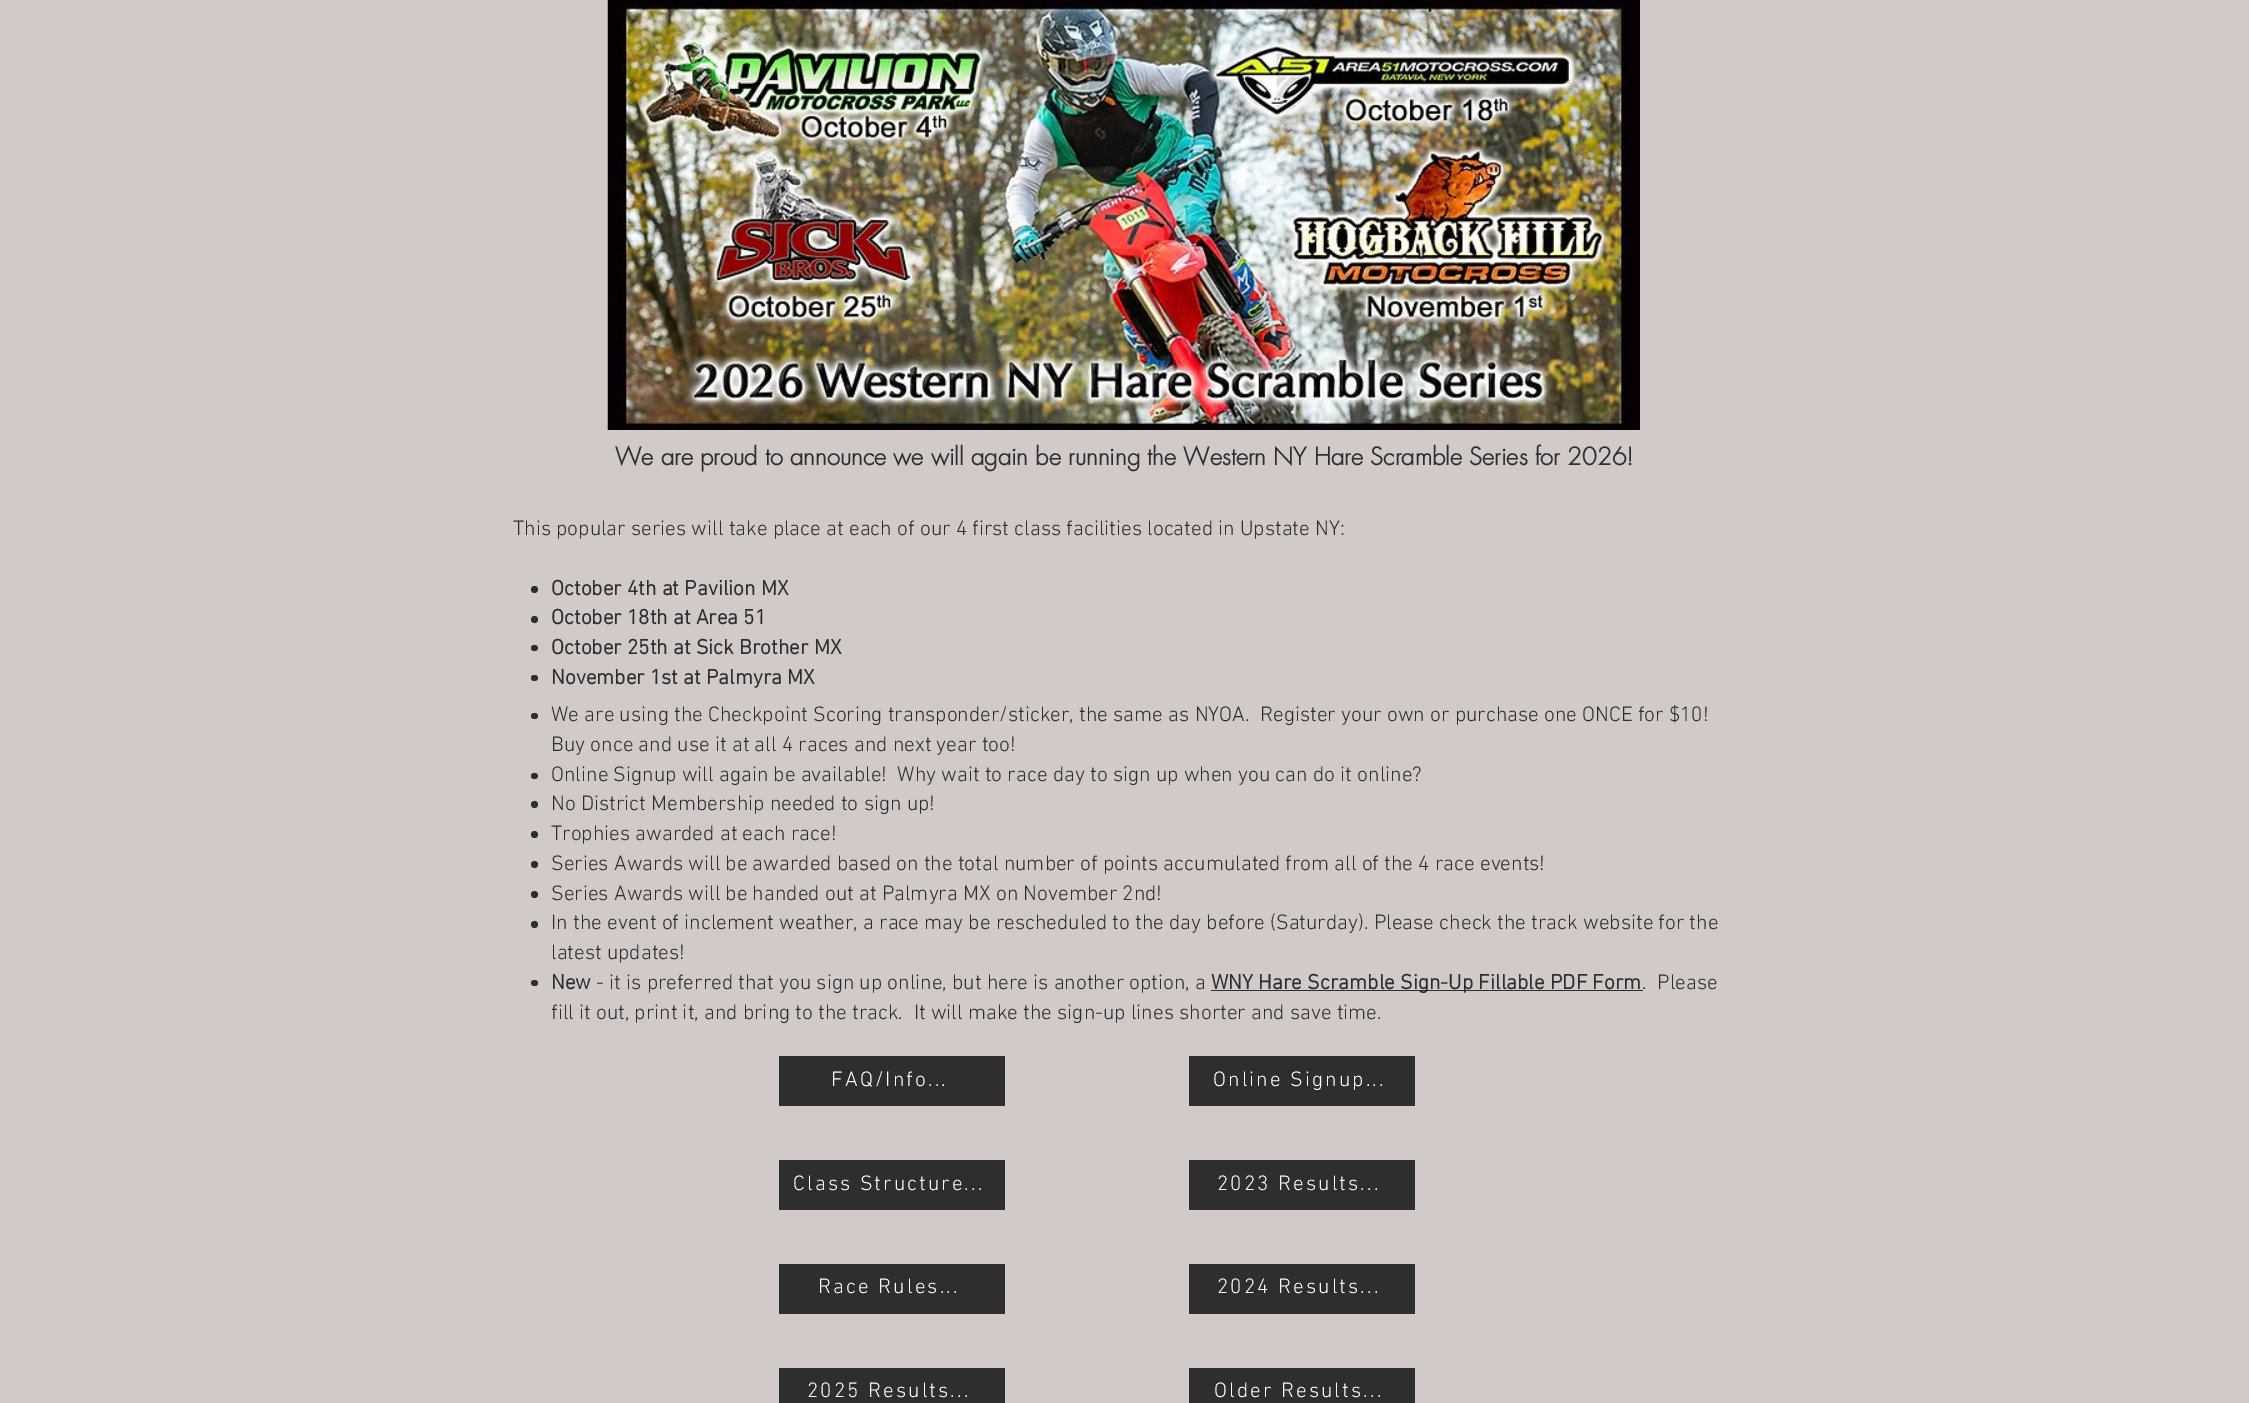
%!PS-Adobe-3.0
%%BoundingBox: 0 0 2249 1403
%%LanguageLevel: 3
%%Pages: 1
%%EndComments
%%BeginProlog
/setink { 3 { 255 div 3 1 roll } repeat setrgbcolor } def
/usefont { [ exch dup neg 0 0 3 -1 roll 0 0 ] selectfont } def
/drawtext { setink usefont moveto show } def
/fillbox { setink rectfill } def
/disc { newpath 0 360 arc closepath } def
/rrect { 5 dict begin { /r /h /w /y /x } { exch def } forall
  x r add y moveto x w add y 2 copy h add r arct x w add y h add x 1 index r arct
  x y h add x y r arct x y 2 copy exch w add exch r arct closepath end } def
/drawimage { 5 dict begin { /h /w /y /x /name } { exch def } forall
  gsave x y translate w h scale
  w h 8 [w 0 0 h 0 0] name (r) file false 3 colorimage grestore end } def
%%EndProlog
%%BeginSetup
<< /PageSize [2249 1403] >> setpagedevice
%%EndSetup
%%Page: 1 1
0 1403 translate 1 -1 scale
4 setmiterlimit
0 0 2249 1403 209 202 201 fillbox
(assets/img1.rgb) 607 0 1033 430 drawimage
(We are proud to announce we will again be running the Western NY Hare Scramble Series for 2026!) 615 465 /futura-Bold 23.75 47 46 46 drawtext
(This popular series will take place at each of our 4 first class facilities located in Upstate NY:) 513 535 /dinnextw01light-Light 21.25 47 46 46 drawtext
534.5 589.5 3.5 disc fill
(October 4th at Pavilion MX) 551 595 /dinnextw01light-Bold 21.25 47 46 46 drawtext
534.5 619.5 3.5 disc fill
(October 18th at Area 51) 551 624 /dinnextw01light-Bold 21.25 47 46 46 drawtext
531 645 7 6 3 rrect fill
(October 25th at Sick Brother MX) 551 654 /dinnextw01light-Bold 21.25 47 46 46 drawtext
531 675 7 6 3 rrect fill
(November 1st at Palmyra MX) 551 684 /dinnextw01light-Bold 21.25 47 46 46 drawtext
531 713 7 6 3 rrect fill
(We are using the Checkpoint Scoring transponder/sticker, the same as NYOA.  Register your own or purchase one ONCE for $10!) 551 721 /dinnextw01light-Light 21.25 47 46 46 drawtext
(Buy once and use it at all 4 races and next year too!) 551 751 /dinnextw01light-Light 21.25 47 46 46 drawtext
531 773 7 6 3 rrect fill
(Online Signup will again be available!  Why wait to race day to sign up when you can do it online?) 551 781 /dinnextw01light-Light 21.25 47 46 46 drawtext
534.5 804.5 3.5 disc fill
(No District Membership needed to sign up!) 551 810 /dinnextw01light-Light 21.25 47 46 46 drawtext
534.5 834.5 3.5 disc fill
(Trophies awarded at each race!) 551 840 /dinnextw01light-Light 21.25 47 46 46 drawtext
534.5 864.5 3.5 disc fill
(Series Awards will be awarded based on the total number of points accumulated from all of the 4 race events!) 551 870 /dinnextw01light-Light 21.25 47 46 46 drawtext
534.5 894.5 3.5 disc fill
(Series Awards will be handed out at Palmyra MX on November 2nd!) 551 900 /dinnextw01light-Light 21.25 47 46 46 drawtext
534.5 924.5 3.5 disc fill
(In the event of inclement weather, a race may be rescheduled to the day before \(Saturday\). Please check the track website for the) 551 929 /dinnextw01light-Light 21.25 47 46 46 drawtext
(latest updates!) 551 959 /dinnextw01light-Light 21.25 47 46 46 drawtext
531 980 7 6 3 rrect fill
(New) 551 989 /dinnextw01light-Bold 21.25 47 46 46 drawtext
(- it is preferred that you sign up online, but here is another option, a) 596 989 /dinnextw01light-Light 21.25 47 46 46 drawtext
1211 990 432 1 47 46 46 fillbox
(WNY Hare Scramble Sign-Up Fillable PDF Form) 1211 989 /dinnextw01light-Bold 21.25 47 46 46 drawtext
(.  Please) 1642 989 /dinnextw01light-Light 21.25 47 46 46 drawtext
(fill it out, print it, and bring to the track.  It will make the sign-up lines shorter and save time.) 551 1019 /dinnextw01light-Light 21.25 47 46 46 drawtext
779 1056 226 50 47 46 46 fillbox
255 255 255 setink
831 1086 moveto 2.1 0 (FAQ/Info...) ashow
779 1160 226 50 47 46 46 fillbox
255 255 255 setink
793 1190 moveto 2.1 0 (Class Structure...) ashow
779 1264 226 50 47 46 46 fillbox
255 255 255 setink
818 1293 moveto 2.1 0 (Race Rules...) ashow
779 1368 226 35 47 46 46 fillbox
255 255 255 setink
807 1397 moveto 2.1 0 (2025 Results...) ashow
1189 1056 226 50 47 46 46 fillbox
255 255 255 setink
1213 1086 moveto 2.1 0 (Online Signup...) ashow
1189 1160 226 50 47 46 46 fillbox
255 255 255 setink
1217 1190 moveto 2.1 0 (2023 Results...) ashow
1189 1264 226 50 47 46 46 fillbox
255 255 255 setink
1217 1293 moveto 2.1 0 (2024 Results...) ashow
1189 1368 226 35 47 46 46 fillbox
255 255 255 setink
1214 1397 moveto 2.1 0 (Older Results...) ashow
showpage
%%EOF
